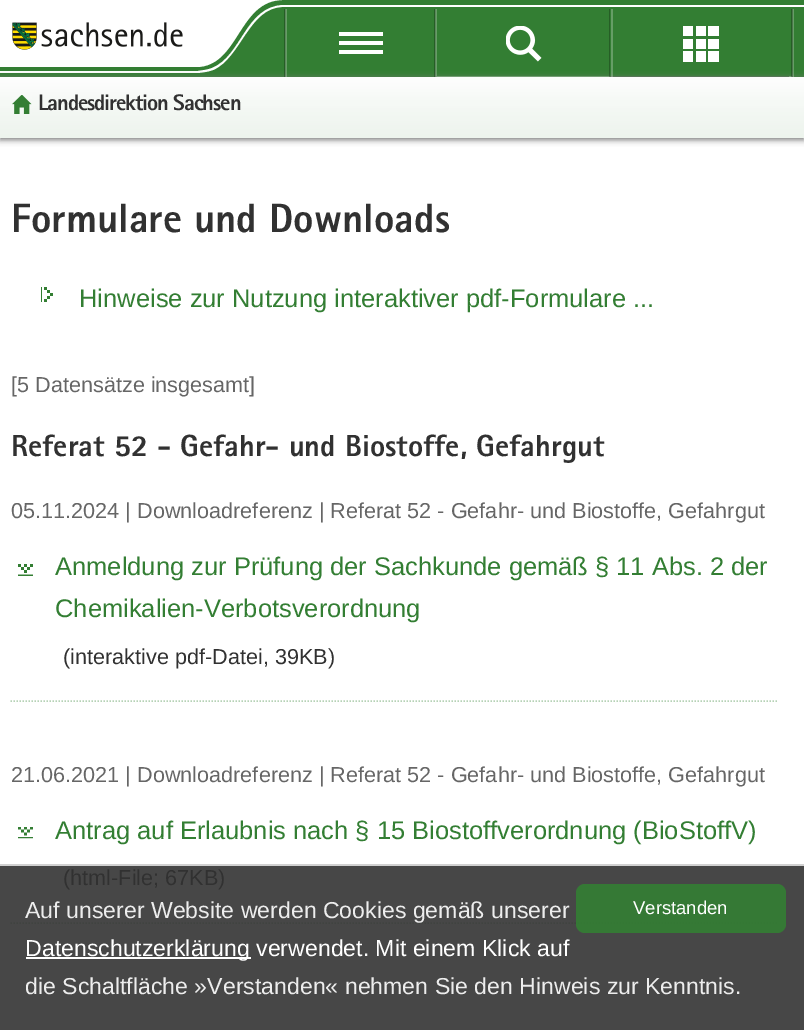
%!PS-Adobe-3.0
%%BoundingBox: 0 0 804 1030
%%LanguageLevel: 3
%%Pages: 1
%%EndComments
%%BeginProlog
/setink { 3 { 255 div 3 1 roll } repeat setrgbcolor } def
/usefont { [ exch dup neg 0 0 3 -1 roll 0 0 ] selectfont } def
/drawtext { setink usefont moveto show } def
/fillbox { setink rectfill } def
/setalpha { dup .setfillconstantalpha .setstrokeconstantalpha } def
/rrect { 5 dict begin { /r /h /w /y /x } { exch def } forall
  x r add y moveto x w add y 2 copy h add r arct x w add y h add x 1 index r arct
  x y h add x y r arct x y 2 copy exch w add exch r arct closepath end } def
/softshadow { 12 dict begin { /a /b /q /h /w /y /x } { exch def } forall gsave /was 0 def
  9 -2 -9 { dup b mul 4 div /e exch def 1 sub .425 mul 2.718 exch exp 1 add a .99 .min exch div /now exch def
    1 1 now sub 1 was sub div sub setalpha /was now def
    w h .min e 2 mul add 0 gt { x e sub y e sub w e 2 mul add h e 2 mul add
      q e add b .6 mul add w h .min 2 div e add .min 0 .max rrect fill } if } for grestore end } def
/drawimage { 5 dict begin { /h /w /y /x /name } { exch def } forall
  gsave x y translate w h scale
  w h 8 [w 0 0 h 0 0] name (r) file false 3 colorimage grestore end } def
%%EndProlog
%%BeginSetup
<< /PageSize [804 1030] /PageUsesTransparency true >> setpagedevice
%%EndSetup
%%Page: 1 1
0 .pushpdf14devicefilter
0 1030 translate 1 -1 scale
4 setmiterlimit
0 0 804 1030 255 255 255 fillbox
0 866 804 164 71 71 71 fillbox
0 0 804 77 51 126 51 fillbox
255 255 255 setink
283 5 moveto 245 7 242 56 212 68 curveto 207 70 204 70 198 71 curveto -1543 71 lineto -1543 73 lineto 198 73 lineto 205 72 207 72 213 70 curveto 241 58 249 7 283 7 curveto 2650 7 lineto 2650 5 lineto closepath fill
196 67 moveto 239 67 238 0 283 0 curveto -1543 0 lineto -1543 67 lineto closepath fill
(assets/img1.rgb) 12 22 171 28 drawimage
121 121 121 setink
0 78 804 62 0 3 1 softshadow
0.25 setalpha
284 9 2 68 0 0 0 fillbox
434 9 2 68 0 0 0 fillbox
285 9 2 68 255 255 255 fillbox
1 setalpha
339 32 44 4 255 255 255 fillbox
339 41 44 4 255 255 255 fillbox
339 50 44 4 255 255 255 fillbox
0.25 setalpha
437 76 moveto 437 77 lineto 794 77 lineto 794 9 lineto 792 9 lineto 792 76 lineto closepath fill
791 9 2 68 0 0 0 fillbox
435 9 2 68 255 255 255 fillbox
1 setalpha
(assets/img2.rgb) 506 26 36 36 drawimage
0.25 setalpha
0 0 0 setink
609 9 moveto 609 77 lineto 789 77 lineto 789 76 lineto 610 76 lineto 610 9 lineto closepath fill
1 setalpha
(assets/img3.rgb) 683 26 36 36 drawimage
0.25 setalpha
611 9 2 68 255 255 255 fillbox
1 setalpha
gsave 0 77 moveto 804 77 lineto 804 138 lineto 0 138 lineto closepath clip newpath
<< /ShadingType 2 /ColorSpace /DeviceRGB /Coords [402 76 402 138] /Extend [true true] /Function << /FunctionType 3 /Domain [0 1] /Functions [<< /FunctionType 2 /Domain [0 1] /C0 [0.996 0.996 0.996] /C1 [0.957 0.973 0.957] /N 1 >> << /FunctionType 2 /Domain [0 1] /C0 [0.957 0.973 0.957] /C1 [0.929 0.957 0.929] /N 1 >>] /Bounds [0.5] /Encode [0 1 0 1] >> >> shfill grestore
(assets/img4.rgb) 12 95 20 19 drawimage
/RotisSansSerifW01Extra-ExtraBold 22.5 usefont
49 49 49 setink
38 110 moveto -1.1 0 (Landesdirektion Sachsen) ashow
(Formulare und Downloads) 11 232 /RotisSansSerifW01Extra-ExtraBold 41 49 49 49 drawtext
(assets/img5.rgb) 41 287 12 15 drawimage
(Hinweise zur Nutzung interaktiver pdf-Formulare ...) 79 307 /LiberationSans-Regular 25.5 51 126 51 drawtext
([5 Datensätze insgesamt]) 11 392 /LiberationSans-Regular 21.65 102 102 102 drawtext
(Referat 52 - Gefahr- und Biostoffe, Gefahrgut) 11 456 /RotisSansSerifW01Extra-ExtraBold 30.6 49 49 49 drawtext
(05.11.2024 | Downloadreferenz | Referat 52 - Gefahr- und Biostoffe, Gefahrgut) 11 518 /LiberationSans-Regular 21.65 102 102 102 drawtext
(assets/img6.rgb) 18 564 15 12 drawimage
(Anmeldung zur Prüfung der Sachkunde gemäß § 11 Abs. 2 der) 55 575 /LiberationSans-Regular 25.5 51 126 51 drawtext
(Chemikalien-Verbotsverordnung) 55 617 /LiberationSans-Regular 25.5 51 126 51 drawtext
(\(interaktive pdf-Datei, 39KB\)) 63 664 /LiberationSans-Regular 21.65 49 49 49 drawtext
182 210 182 setink
1.5 setlinewidth
[1.5 1.5] 0 setdash
10.5 701 moveto 778.5 701 lineto stroke
(21.06.2021 | Downloadreferenz | Referat 52 - Gefahr- und Biostoffe, Gefahrgut) 11 782 /LiberationSans-Regular 21.65 102 102 102 drawtext
(assets/img7.rgb) 18 827 15 12 drawimage
(Antrag auf Erlaubnis nach § 15 Biostoffverordnung \(BioStoffV\)) 55 839 /LiberationSans-Regular 25.5 51 126 51 drawtext
(\(html-File; 67KB\)) 63 885 /LiberationSans-Regular 21.65 49 49 49 drawtext
64 67 64 setink
10.5 923 moveto 778.5 923 lineto stroke
0 864 804 2 209 209 209 fillbox
0.9 setalpha
51 126 51 setink
576 884 210 49 9 rrect fill
1 setalpha
(Verstanden) 633 914 /LiberationSans-Regular 18.5 255 255 255 drawtext
(Auf unserer Website werden Cookies gemäß unserer) 25 918 /LiberationSans-Regular 23.1 237 237 237 drawtext
26 957 225 2 255 255 255 fillbox
(Datenschutzerklärung verwendet. Mit einem Klick auf) 25 956 /LiberationSans-Regular 23.1 255 255 255 drawtext
(die Schaltfläche »Verstanden« nehmen Sie den Hinweis zur Kenntnis.) 25 994 /LiberationSans-Regular 23.1 237 237 237 drawtext
.poppdf14devicefilter showpage
%%EOF
